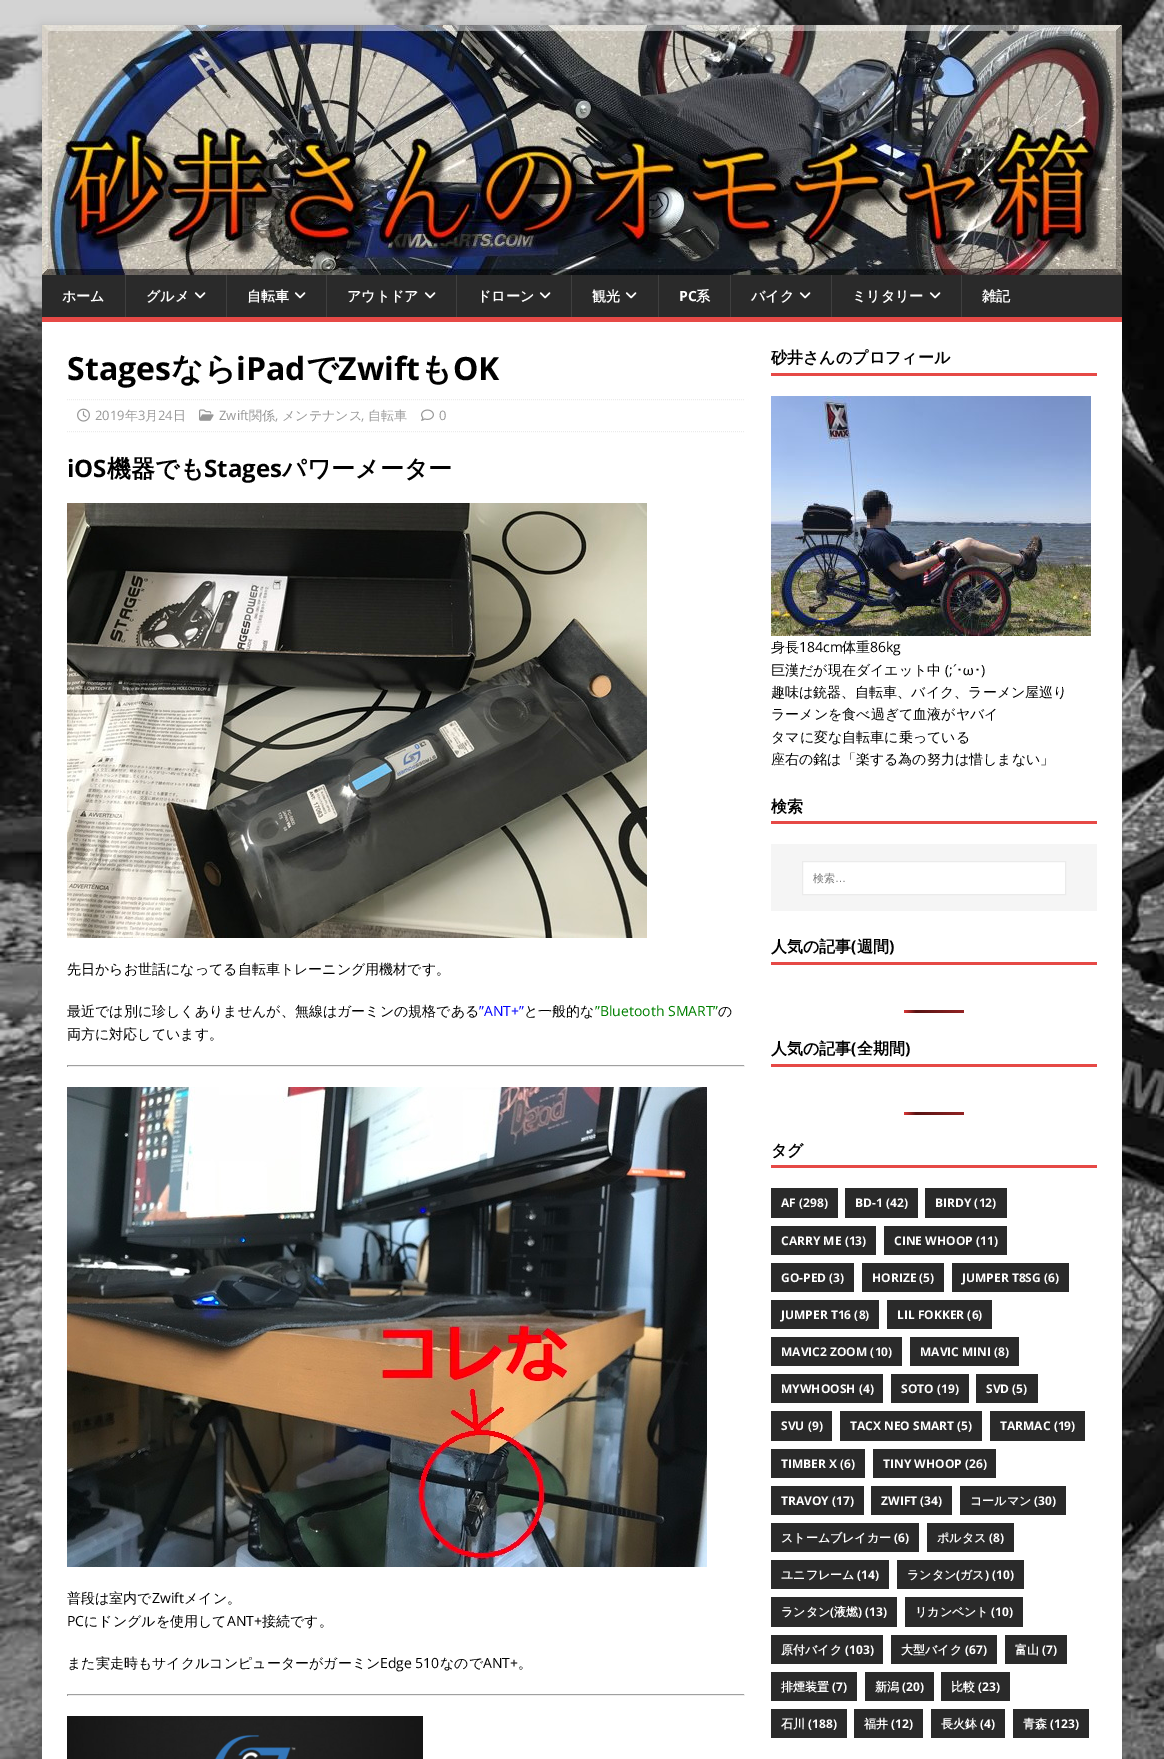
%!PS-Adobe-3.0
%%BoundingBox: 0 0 1164 1759
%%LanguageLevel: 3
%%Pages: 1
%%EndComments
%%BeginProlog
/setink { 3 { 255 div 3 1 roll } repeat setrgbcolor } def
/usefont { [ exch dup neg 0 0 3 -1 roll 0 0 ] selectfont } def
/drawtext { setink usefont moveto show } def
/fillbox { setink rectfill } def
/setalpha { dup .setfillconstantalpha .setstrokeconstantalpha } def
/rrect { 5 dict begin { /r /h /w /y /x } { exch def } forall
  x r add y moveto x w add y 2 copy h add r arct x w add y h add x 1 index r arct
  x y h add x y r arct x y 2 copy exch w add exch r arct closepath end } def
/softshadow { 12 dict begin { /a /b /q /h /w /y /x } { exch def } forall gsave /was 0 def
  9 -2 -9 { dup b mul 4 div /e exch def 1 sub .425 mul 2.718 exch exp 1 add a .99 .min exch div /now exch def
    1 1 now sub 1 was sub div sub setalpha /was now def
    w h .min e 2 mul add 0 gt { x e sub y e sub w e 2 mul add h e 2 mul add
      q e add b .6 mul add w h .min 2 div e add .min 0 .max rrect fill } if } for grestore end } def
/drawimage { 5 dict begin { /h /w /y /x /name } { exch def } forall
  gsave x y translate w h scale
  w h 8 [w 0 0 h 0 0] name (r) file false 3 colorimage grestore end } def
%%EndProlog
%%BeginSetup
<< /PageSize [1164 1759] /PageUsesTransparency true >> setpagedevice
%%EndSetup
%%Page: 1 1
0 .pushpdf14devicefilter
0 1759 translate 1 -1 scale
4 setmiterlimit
0 0 1164 1759 255 255 255 fillbox
(assets/img1.rgb) 0 0 1164 1759 drawimage
50 50 50 setink
42 25 1080 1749 0 5 0.17 softshadow
(assets/img2.rgb) 42 25 1080 250 drawimage
42 275 1080 42 42 42 42 fillbox
42 317 1080 5 230 73 70 fillbox
(ホーム) 62 301 /WenQuanYiZenHei-Bold 14 255 255 255 drawtext
125 275 1 42 63 63 63 fillbox
(グルメ) 146 301 /WenQuanYiZenHei-Bold 14 255 255 255 drawtext
(assets/img3.rgb) 194 292 12 7 drawimage
226 275 1 42 63 63 63 fillbox
(自転車) 247 301 /WenQuanYiZenHei-Bold 14 255 255 255 drawtext
(assets/img3.rgb) 294 292 12 7 drawimage
326 275 1 42 63 63 63 fillbox
(アウトドア) 347 301 /WenQuanYiZenHei-Bold 14 255 255 255 drawtext
(assets/img3.rgb) 424 292 12 7 drawimage
456 275 1 42 63 63 63 fillbox
(ドローン) 477 301 /WenQuanYiZenHei-Bold 14 255 255 255 drawtext
(assets/img3.rgb) 539 292 12 7 drawimage
571 275 1 42 63 63 63 fillbox
(観光) 592 301 /WenQuanYiZenHei-Bold 14 255 255 255 drawtext
(assets/img3.rgb) 625 292 12 7 drawimage
658 275 1 42 63 63 63 fillbox
(PC) 679 301 /OpenSans-Bold 14 255 255 255 drawtext
(系) 696 301 /WenQuanYiZenHei-Bold 14 255 255 255 drawtext
730 275 1 42 63 63 63 fillbox
(バイク) 751 301 /WenQuanYiZenHei-Bold 14 255 255 255 drawtext
(assets/img3.rgb) 799 292 12 7 drawimage
831 275 1 42 63 63 63 fillbox
(ミリタリー) 852 301 /WenQuanYiZenHei-Bold 14 255 255 255 drawtext
(assets/img3.rgb) 929 292 12 7 drawimage
961 275 1 42 63 63 63 fillbox
(雑記) 982 301 /WenQuanYiZenHei-Bold 14 255 255 255 drawtext
42 322 1080 1437 255 255 255 fillbox
(Stages) 67 380 /OpenSans-Bold 32 0 0 0 drawtext
(なら) 171 380 /WenQuanYiZenHei-Bold 32 0 0 0 drawtext
(iPad) 236 380 /OpenSans-Bold 32 0 0 0 drawtext
(で) 306 380 /WenQuanYiZenHei-Bold 32 0 0 0 drawtext
(Zwift) 338 380 /OpenSans-Bold 32 0 0 0 drawtext
(も) 420 380 /WenQuanYiZenHei-Bold 32 0 0 0 drawtext
(OK) 453 380 /OpenSans-Bold 32 0 0 0 drawtext
235 235 235 setink
[1 1] 0 setdash
67 399.5 moveto 745 399.5 lineto stroke
67 431.5 moveto 745 431.5 lineto stroke
(assets/img4.rgb) 77 408 13 14 drawimage
(2019) 95 420 /OpenSans-Regular 13 151 151 151 drawtext
(年) 125 420 /WenQuanYiZenHei-Medium 13 151 151 151 drawtext
(3) 138 420 /OpenSans-Regular 13 151 151 151 drawtext
(月) 145 420 /WenQuanYiZenHei-Medium 13 151 151 151 drawtext
(24) 158 420 /OpenSans-Regular 13 151 151 151 drawtext
(日) 173 420 /WenQuanYiZenHei-Medium 13 151 151 151 drawtext
(assets/img5.rgb) 199 409 15 12 drawimage
(Zwift) 219 420 /OpenSans-Regular 13 151 151 151 drawtext
(関係) 249 420 /WenQuanYiZenHei-Medium 13 151 151 151 drawtext
(,) 275 420 /OpenSans-Regular 13 151 151 151 drawtext
(メンテナンス) 282 420 /WenQuanYiZenHei-Medium 13 151 151 151 drawtext
(,) 361 420 /OpenSans-Regular 13 151 151 151 drawtext
(自転車) 368 420 /WenQuanYiZenHei-Medium 13 151 151 151 drawtext
(assets/img6.rgb) 421 409 13 12 drawimage
(0) 439 420 /OpenSans-Regular 13 151 151 151 drawtext
(iOS) 67 477 /OpenSans-Bold 24 0 0 0 drawtext
(機器でも) 107 477 /WenQuanYiZenHei-Bold 24 0 0 0 drawtext
(Stages) 204 477 /OpenSans-Bold 24 0 0 0 drawtext
(パワーメーター) 282 477 /WenQuanYiZenHei-Bold 24 0 0 0 drawtext
(assets/img7.rgb) 67 503 580 435 drawimage
(先日からお世話になってる自転車トレーニング用機材です。) 67 974 /WenQuanYiZenHei-Medium 14 0 0 0 drawtext
(最近では別に珍しくありませんが、無線はガーミンの規格である) 67 1016 /WenQuanYiZenHei-Medium 14 0 0 0 drawtext
(”ANT+”) 479 1016 /OpenSans-Regular 14 0 0 255 drawtext
(と一般的な) 524 1016 /WenQuanYiZenHei-Medium 14 0 0 0 drawtext
(”Bluetooth SMART”) 595 1016 /OpenSans-Regular 14 0 128 0 drawtext
(の) 718 1016 /WenQuanYiZenHei-Medium 14 0 0 0 drawtext
(両方に対応しています。) 67 1039 /WenQuanYiZenHei-Medium 14 0 0 0 drawtext
67 1065 678 1 159 159 159 fillbox
744 1065 1 2 238 238 238 fillbox
67 1066 678 1 238 238 238 fillbox
67 1065 1 2 159 159 159 fillbox
(assets/img8.rgb) 67 1087 640 480 drawimage
(普段は室内で) 67 1603 /WenQuanYiZenHei-Medium 14 0 0 0 drawtext
(Zwift) 152 1603 /OpenSans-Regular 14 0 0 0 drawtext
(メイン。) 184 1603 /WenQuanYiZenHei-Medium 14 0 0 0 drawtext
(PC) 67 1626 /OpenSans-Regular 14 0 0 0 drawtext
(にドングルを使用して) 84 1626 /WenQuanYiZenHei-Medium 14 0 0 0 drawtext
(ANT+) 227 1626 /OpenSans-Regular 14 0 0 0 drawtext
(接続です。) 262 1626 /WenQuanYiZenHei-Medium 14 0 0 0 drawtext
(また実走時もサイクルコンピューターがガーミン) 67 1668 /WenQuanYiZenHei-Medium 14 0 0 0 drawtext
(Edge 510) 380 1668 /OpenSans-Regular 14 0 0 0 drawtext
(なので) 440 1668 /WenQuanYiZenHei-Medium 14 0 0 0 drawtext
(ANT+) 483 1668 /OpenSans-Regular 14 0 0 0 drawtext
(。) 518 1668 /WenQuanYiZenHei-Medium 14 0 0 0 drawtext
67 1694 678 1 159 159 159 fillbox
744 1694 1 2 238 238 238 fillbox
67 1695 678 1 238 238 238 fillbox
67 1694 1 2 159 159 159 fillbox
(assets/img9.rgb) 67 1716 356 43 drawimage
771 373 326 3 230 73 70 fillbox
(砂井さんのプロフィール) 771 363 /WenQuanYiZenHei-Bold 16 0 0 0 drawtext
(assets/img10.rgb) 771 396 320 240 drawimage
(身長) 771 652 /WenQuanYiZenHei-Medium 14 0 0 0 drawtext
(184cm) 799 652 /OpenSans-Regular 14 0 0 0 drawtext
(体重) 842 652 /WenQuanYiZenHei-Medium 14 0 0 0 drawtext
(86kg) 870 652 /OpenSans-Regular 14 0 0 0 drawtext
(巨漢だが現在ダイエット中) 771 675 /WenQuanYiZenHei-Medium 14 0 0 0 drawtext
(\(;´) 945 675 /OpenSans-Regular 14 0 0 0 drawtext
(･) 956 675 /IPAPGothic-Regular 14 0 0 0 drawtext
(ω) 963 675 /WenQuanYiZenHei-Medium 14 0 0 0 drawtext
(･) 974 675 /IPAPGothic-Regular 14 0 0 0 drawtext
(\)) 981 675 /OpenSans-Regular 14 0 0 0 drawtext
(趣味は銃器、自転車、バイク、ラーメン屋巡り) 771 697 /WenQuanYiZenHei-Medium 14 0 0 0 drawtext
(ラーメンを食べ過ぎて血液がヤバイ) 771 719 /WenQuanYiZenHei-Medium 14 0 0 0 drawtext
(タマに変な自転車に乗っている) 771 742 /WenQuanYiZenHei-Medium 14 0 0 0 drawtext
(座右の銘は「楽する為の努力は惜しまない」) 771 764 /WenQuanYiZenHei-Medium 14 0 0 0 drawtext
771 821 326 3 230 73 70 fillbox
(検索) 771 812 /WenQuanYiZenHei-Bold 16 0 0 0 drawtext
771 844 326 67 245 245 245 fillbox
255 255 255 setink
802.5 861.5 moveto 1065.5 861.5 lineto 1065.5 894.5 lineto 802.5 894.5 lineto closepath gsave fill grestore
235 235 235 setink
[] 0 setdash
stroke
(検索) 813 882 /WenQuanYiZenHei-Medium 11 117 117 117 drawtext
(…) 835 882 /LiberationSans-Regular 11 117 117 117 drawtext
771 962 326 3 230 73 70 fillbox
(人気の記事) 771 952 /WenQuanYiZenHei-Bold 16 0 0 0 drawtext
(\() 851 952 /OpenSans-Bold 16 0 0 0 drawtext
(週間) 857 952 /WenQuanYiZenHei-Bold 16 0 0 0 drawtext
(\)) 889 952 /OpenSans-Bold 16 0 0 0 drawtext
gsave 904 1010 60 3 1.5 rrect clip newpath
<< /ShadingType 2 /ColorSpace /DeviceRGB /Coords [904 1012 1024 1012] /Extend [true true] /Function << /FunctionType 3 /Domain [0 1] /Functions [<< /FunctionType 2 /Domain [0 1] /C0 [0.867 0.216 0.216] /C1 [0.341 0.075 0.075] /N 1 >> << /FunctionType 2 /Domain [0 1] /C0 [0.341 0.075 0.075] /C1 [0.867 0.216 0.216] /N 1 >>] /Bounds [0.1] /Encode [0 1 0 1] >> >> shfill grestore
771 1064 326 3 230 73 70 fillbox
(人気の記事) 771 1054 /WenQuanYiZenHei-Bold 16 0 0 0 drawtext
(\() 851 1054 /OpenSans-Bold 16 0 0 0 drawtext
(全期間) 857 1054 /WenQuanYiZenHei-Bold 16 0 0 0 drawtext
(\)) 905 1054 /OpenSans-Bold 16 0 0 0 drawtext
gsave 904 1112 60 3 1.5 rrect clip newpath
<< /ShadingType 2 /ColorSpace /DeviceRGB /Coords [904 1114 1024 1114] /Extend [true true] /Function << /FunctionType 3 /Domain [0 1] /Functions [<< /FunctionType 2 /Domain [0 1] /C0 [0.867 0.216 0.216] /C1 [0.341 0.075 0.075] /N 1 >> << /FunctionType 2 /Domain [0 1] /C0 [0.341 0.075 0.075] /C1 [0.867 0.216 0.216] /N 1 >>] /Bounds [0.1] /Encode [0 1 0 1] >> >> shfill grestore
771 1165 326 3 230 73 70 fillbox
(タグ) 771 1156 /WenQuanYiZenHei-Bold 16 0 0 0 drawtext
771 1188 67 30 42 42 42 fillbox
(AF \(298\)) 781 1207 /OpenSans-Bold 12 255 255 255 drawtext
845 1188 73 30 42 42 42 fillbox
(BD-1 \(42\)) 855 1207 /OpenSans-Bold 12 255 255 255 drawtext
925 1188 82 30 42 42 42 fillbox
(BIRDY \(12\)) 935 1207 /OpenSans-Bold 12 255 255 255 drawtext
771 1226 105 29 42 42 42 fillbox
(CARRY ME \(13\)) 781 1245 /OpenSans-Bold 12 255 255 255 drawtext
884 1226 123 29 42 42 42 fillbox
(CINE WHOOP \(11\)) 894 1245 /OpenSans-Bold 12 255 255 255 drawtext
771 1263 83 29 42 42 42 fillbox
(GO-PED \(3\)) 781 1282 /OpenSans-Bold 12 255 255 255 drawtext
862 1263 82 29 42 42 42 fillbox
(HORIZE \(5\)) 872 1282 /OpenSans-Bold 12 255 255 255 drawtext
952 1263 117 29 42 42 42 fillbox
(JUMPER T8SG \(6\)) 962 1282 /OpenSans-Bold 12 255 255 255 drawtext
771 1300 108 29 42 42 42 fillbox
(JUMPER T16 \(8\)) 781 1319 /OpenSans-Bold 12 255 255 255 drawtext
887 1300 105 29 42 42 42 fillbox
(LIL FOKKER \(6\)) 897 1319 /OpenSans-Bold 12 255 255 255 drawtext
771 1337 131 29 42 42 42 fillbox
(MAVIC2 ZOOM \(10\)) 781 1356 /OpenSans-Bold 12 255 255 255 drawtext
910 1337 109 29 42 42 42 fillbox
(MAVIC MINI \(8\)) 920 1356 /OpenSans-Bold 12 255 255 255 drawtext
771 1374 112 29 42 42 42 fillbox
(MYWHOOSH \(4\)) 781 1393 /OpenSans-Bold 12 255 255 255 drawtext
891 1374 78 29 42 42 42 fillbox
(SOTO \(19\)) 901 1393 /OpenSans-Bold 12 255 255 255 drawtext
976 1374 62 29 42 42 42 fillbox
(SVD \(5\)) 986 1393 /OpenSans-Bold 12 255 255 255 drawtext
771 1411 61 30 42 42 42 fillbox
(SVU \(9\)) 781 1430 /OpenSans-Bold 12 255 255 255 drawtext
840 1411 142 30 42 42 42 fillbox
(TACX NEO SMART \(5\)) 850 1430 /OpenSans-Bold 12 255 255 255 drawtext
990 1411 95 30 42 42 42 fillbox
(TARMAC \(19\)) 1000 1430 /OpenSans-Bold 12 255 255 255 drawtext
771 1449 94 29 42 42 42 fillbox
(TIMBER X \(6\)) 781 1468 /OpenSans-Bold 12 255 255 255 drawtext
873 1449 123 29 42 42 42 fillbox
(TINY WHOOP \(26\)) 883 1468 /OpenSans-Bold 12 255 255 255 drawtext
771 1486 93 29 42 42 42 fillbox
(TRAVOY \(17\)) 781 1505 /OpenSans-Bold 12 255 255 255 drawtext
871 1486 81 29 42 42 42 fillbox
(ZWIFT \(34\)) 881 1505 /OpenSans-Bold 12 255 255 255 drawtext
960 1486 106 29 42 42 42 fillbox
(コールマン) 970 1505 /WenQuanYiZenHei-Bold 12 255 255 255 drawtext
(\(30\)) 1034 1505 /OpenSans-Bold 12 255 255 255 drawtext
771 1523 148 29 42 42 42 fillbox
(ストームブレイカー) 781 1542 /WenQuanYiZenHei-Bold 12 255 255 255 drawtext
(\(6\)) 894 1542 /OpenSans-Bold 12 255 255 255 drawtext
927 1523 87 29 42 42 42 fillbox
(ポルタス) 937 1542 /WenQuanYiZenHei-Bold 12 255 255 255 drawtext
(\(8\)) 989 1542 /OpenSans-Bold 12 255 255 255 drawtext
771 1560 118 29 42 42 42 fillbox
(ユニフレーム) 781 1579 /WenQuanYiZenHei-Bold 12 255 255 255 drawtext
(\(14\)) 857 1579 /OpenSans-Bold 12 255 255 255 drawtext
897 1560 127 29 42 42 42 fillbox
(ランタン) 907 1579 /WenQuanYiZenHei-Bold 12 255 255 255 drawtext
(\() 956 1579 /OpenSans-Bold 12 255 255 255 drawtext
(ガス) 960 1579 /WenQuanYiZenHei-Bold 12 255 255 255 drawtext
(\) \(10\)) 985 1579 /OpenSans-Bold 12 255 255 255 drawtext
771 1597 126 30 42 42 42 fillbox
(ランタン) 781 1616 /WenQuanYiZenHei-Bold 12 255 255 255 drawtext
(\() 830 1616 /OpenSans-Bold 12 255 255 255 drawtext
(液燃) 834 1616 /WenQuanYiZenHei-Bold 12 255 255 255 drawtext
(\) \(13\)) 858 1616 /OpenSans-Bold 12 255 255 255 drawtext
905 1597 118 30 42 42 42 fillbox
(リカンベント) 915 1616 /WenQuanYiZenHei-Bold 12 255 255 255 drawtext
(\(10\)) 991 1616 /OpenSans-Bold 12 255 255 255 drawtext
771 1635 112 29 42 42 42 fillbox
(原付バイク) 781 1654 /WenQuanYiZenHei-Bold 12 255 255 255 drawtext
(\(103\)) 845 1654 /OpenSans-Bold 12 255 255 255 drawtext
891 1635 106 29 42 42 42 fillbox
(大型バイク) 901 1654 /WenQuanYiZenHei-Bold 12 255 255 255 drawtext
(\(67\)) 965 1654 /OpenSans-Bold 12 255 255 255 drawtext
1005 1635 62 29 42 42 42 fillbox
(富山) 1015 1654 /WenQuanYiZenHei-Bold 12 255 255 255 drawtext
(\(7\)) 1042 1654 /OpenSans-Bold 12 255 255 255 drawtext
771 1672 86 29 42 42 42 fillbox
(排煙装置) 781 1691 /WenQuanYiZenHei-Bold 12 255 255 255 drawtext
(\(7\)) 832 1691 /OpenSans-Bold 12 255 255 255 drawtext
865 1672 69 29 42 42 42 fillbox
(新潟) 875 1691 /WenQuanYiZenHei-Bold 12 255 255 255 drawtext
(\(20\)) 902 1691 /OpenSans-Bold 12 255 255 255 drawtext
941 1672 69 29 42 42 42 fillbox
(比較) 951 1691 /WenQuanYiZenHei-Bold 12 255 255 255 drawtext
(\(23\)) 978 1691 /OpenSans-Bold 12 255 255 255 drawtext
771 1709 76 29 42 42 42 fillbox
(石川) 781 1728 /WenQuanYiZenHei-Bold 12 255 255 255 drawtext
(\(188\)) 808 1728 /OpenSans-Bold 12 255 255 255 drawtext
854 1709 69 29 42 42 42 fillbox
(福井) 864 1728 /WenQuanYiZenHei-Bold 12 255 255 255 drawtext
(\(12\)) 891 1728 /OpenSans-Bold 12 255 255 255 drawtext
931 1709 74 29 42 42 42 fillbox
(長火鉢) 941 1728 /WenQuanYiZenHei-Bold 12 255 255 255 drawtext
(\(4\)) 980 1728 /OpenSans-Bold 12 255 255 255 drawtext
1013 1709 76 29 42 42 42 fillbox
(青森) 1023 1728 /WenQuanYiZenHei-Bold 12 255 255 255 drawtext
(\(123\)) 1050 1728 /OpenSans-Bold 12 255 255 255 drawtext
.poppdf14devicefilter showpage
%%EOF
